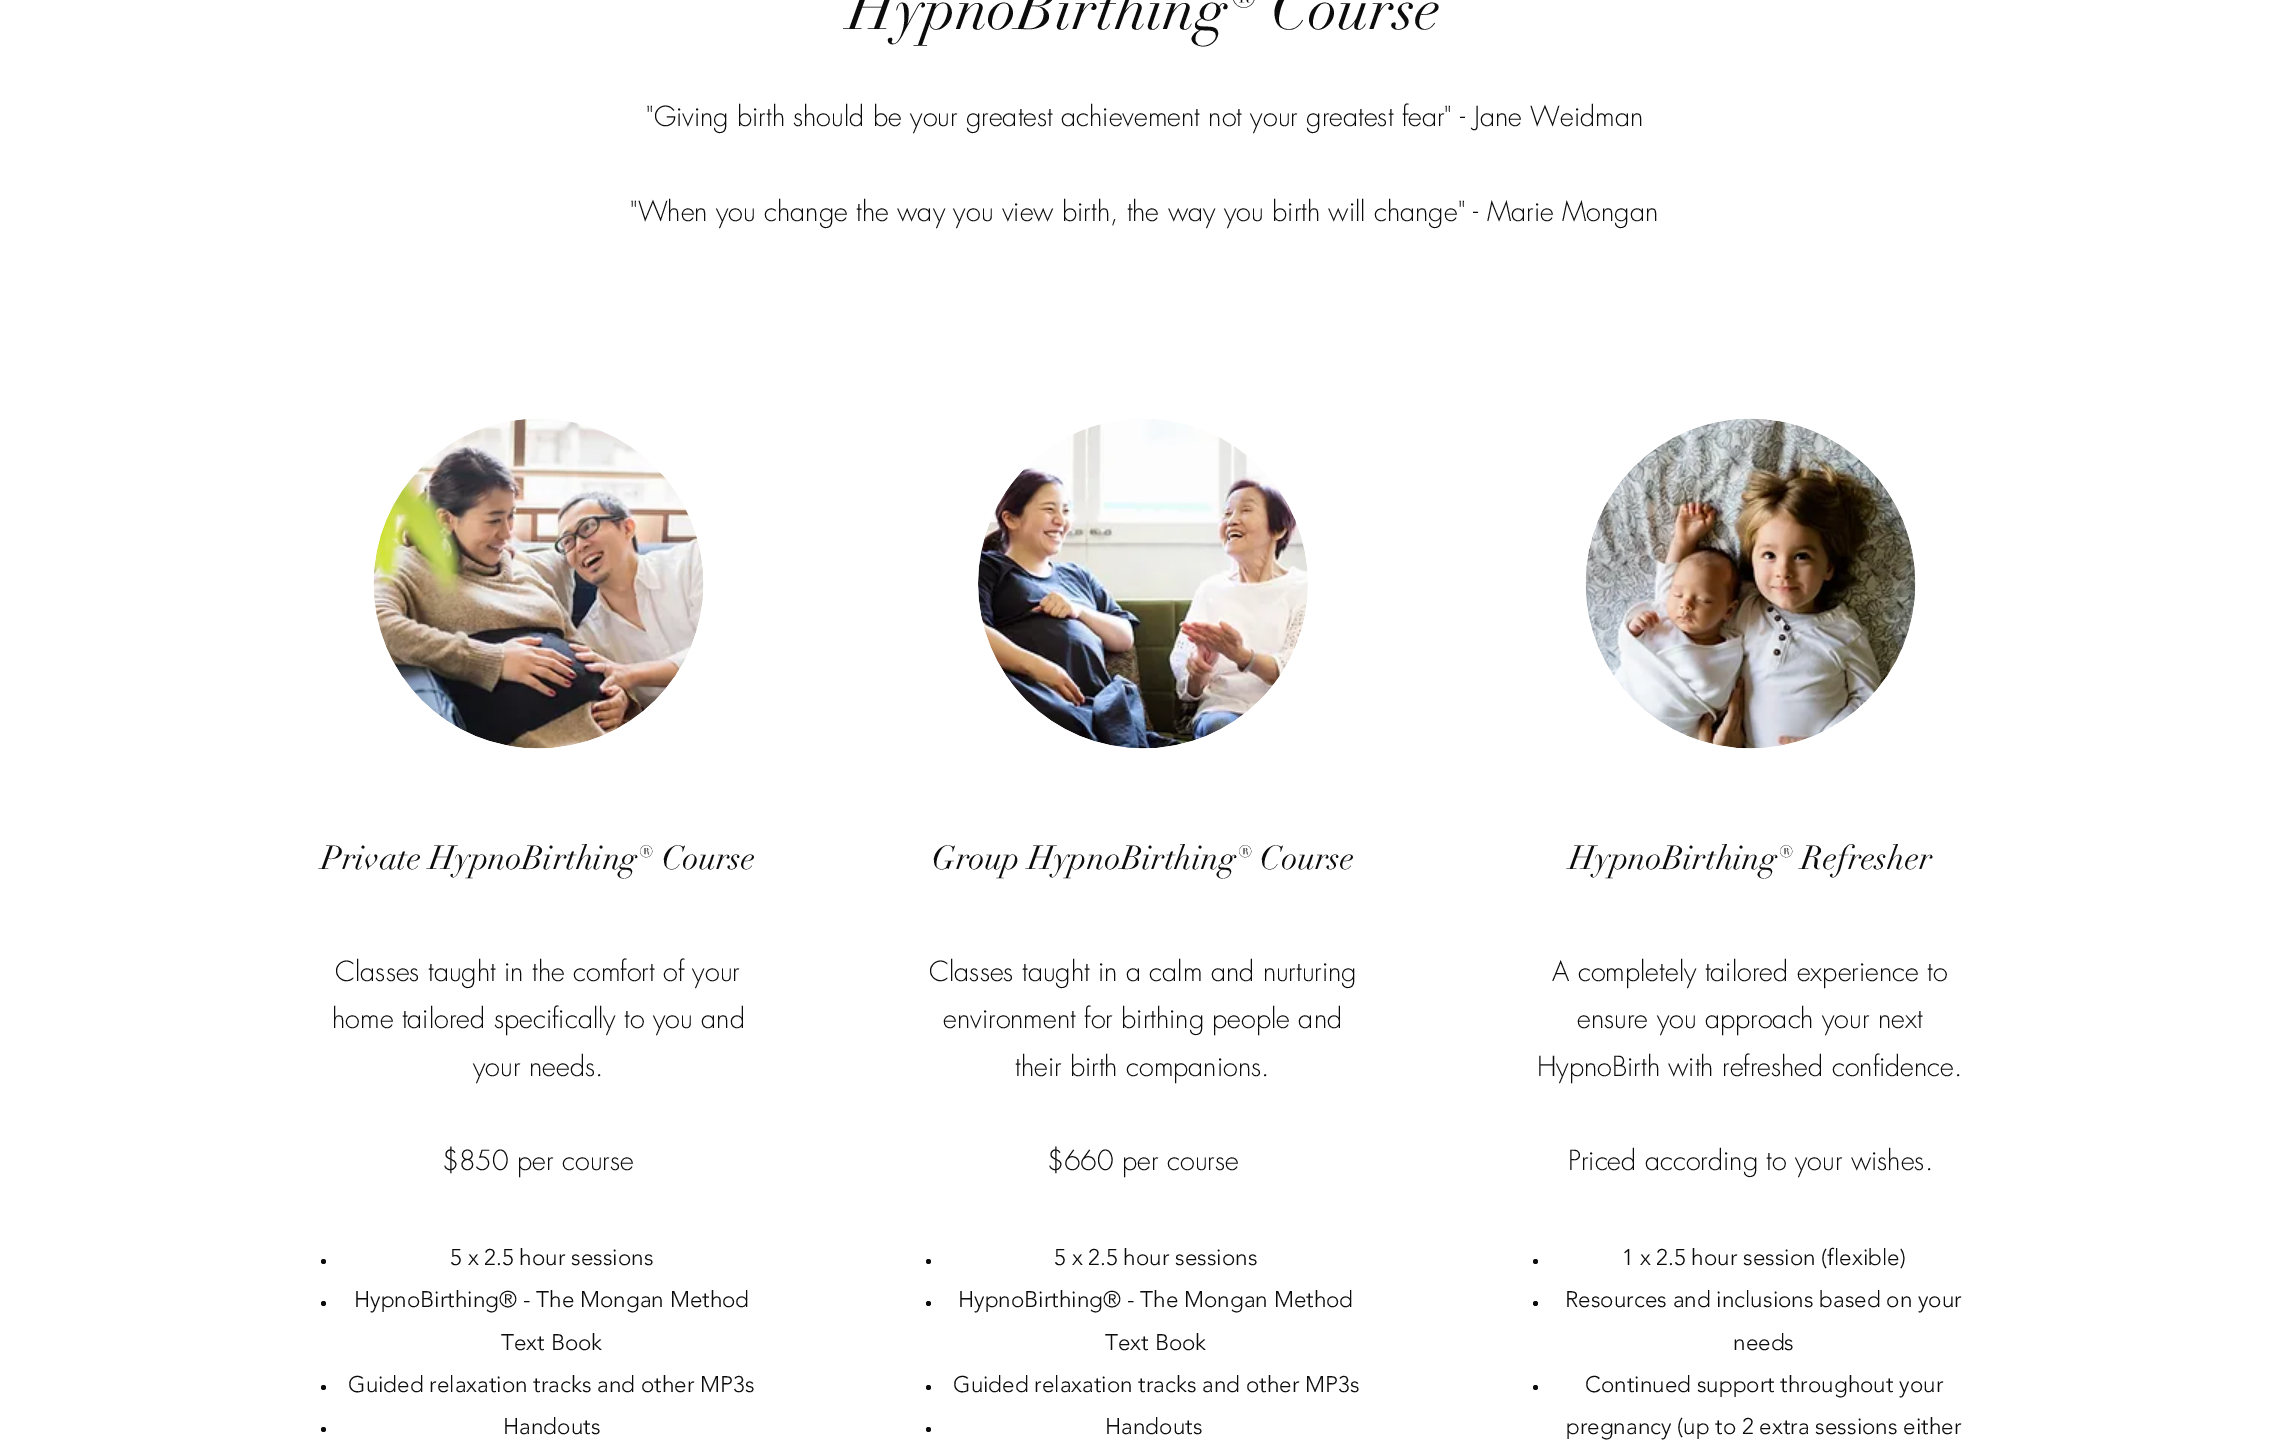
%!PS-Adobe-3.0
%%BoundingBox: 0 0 2289 1451
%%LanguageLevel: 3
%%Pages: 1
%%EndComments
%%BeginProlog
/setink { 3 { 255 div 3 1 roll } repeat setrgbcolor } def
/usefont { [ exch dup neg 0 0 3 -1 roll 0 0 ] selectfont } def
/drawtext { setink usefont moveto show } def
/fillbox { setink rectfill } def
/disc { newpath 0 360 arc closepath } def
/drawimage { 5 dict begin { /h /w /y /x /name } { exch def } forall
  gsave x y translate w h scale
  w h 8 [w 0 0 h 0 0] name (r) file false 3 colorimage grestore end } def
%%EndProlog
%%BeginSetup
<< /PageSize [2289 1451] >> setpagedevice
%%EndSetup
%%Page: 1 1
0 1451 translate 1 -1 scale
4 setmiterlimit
0 0 2289 1451 255 255 255 fillbox
(HypnoBirthing® Course) 848 29 /didot-Regular 60 12 12 12 drawtext
("Giving birth should be your greatest achievement not your greatest fear" - Jane Weidman) 646 126 /futura-Light 27 12 12 12 drawtext
("When you change the way you view birth, the way you birth will change" - Marie Mongan) 630 221 /futura-Light 27 12 12 12 drawtext
(assets/img1.rgb) 373 419 331 330 drawimage
(Private HypnoBirthing® Course) 321 869 /didot-Regular 33 12 12 12 drawtext
(Classes taught in the comfort of your) 335 981 /futura-Light 27 12 12 12 drawtext
(home tailored specifically to you and) 332 1028 /futura-Light 27 12 12 12 drawtext
(your needs.) 473 1076 /futura-Light 27 12 12 12 drawtext
($850 per course) 442 1170 /futura-Light 27 12 12 12 drawtext
323.5 1261.5 2.5 disc fill
(5 x 2.5 hour sessions) 450 1265 /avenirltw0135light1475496-Light 22.5 12 12 12 drawtext
323.5 1303.5 2.5 disc fill
(HypnoBirthing® - The Mongan Method) 354 1307 /avenirltw0135light1475496-Light 22.5 12 12 12 drawtext
(Text Book) 501 1350 /avenirltw0135light1475496-Light 22.5 12 12 12 drawtext
323.5 1387.5 2.5 disc fill
(Guided relaxation tracks and other MP3s) 348 1392 /avenirltw0135light1475496-Light 22.5 12 12 12 drawtext
323.5 1429.5 2.5 disc fill
(Handouts) 503 1434 /avenirltw0135light1475496-Light 22.5 12 12 12 drawtext
(assets/img2.rgb) 978 419 330 330 drawimage
(Group HypnoBirthing® Course) 932 869 /didot-Regular 33 12 12 12 drawtext
(Classes taught in a calm and nurturing) 929 981 /futura-Light 27 12 12 12 drawtext
(environment for birthing people and) 943 1028 /futura-Light 27 12 12 12 drawtext
(their birth companions.) 1015 1076 /futura-Light 27 12 12 12 drawtext
($660 per course) 1047 1170 /futura-Light 27 12 12 12 drawtext
928.5 1261.5 2.5 disc fill
(5 x 2.5 hour sessions) 1054 1265 /avenirltw0135light1475496-Light 22.5 12 12 12 drawtext
928.5 1303.5 2.5 disc fill
(HypnoBirthing® - The Mongan Method) 958 1307 /avenirltw0135light1475496-Light 22.5 12 12 12 drawtext
(Text Book) 1105 1350 /avenirltw0135light1475496-Light 22.5 12 12 12 drawtext
928.5 1387.5 2.5 disc fill
(Guided relaxation tracks and other MP3s) 953 1392 /avenirltw0135light1475496-Light 22.5 12 12 12 drawtext
928.5 1429.5 2.5 disc fill
(Handouts) 1105 1434 /avenirltw0135light1475496-Light 22.5 12 12 12 drawtext
(assets/img3.rgb) 1585 418 331 331 drawimage
(HypnoBirthing® Refresher) 1569 869 /didot-Regular 33 12 12 12 drawtext
(A completely tailored experience to) 1552 981 /futura-Light 27 12 12 12 drawtext
(ensure you approach your next) 1577 1028 /futura-Light 27 12 12 12 drawtext
(HypnoBirth with refreshed confidence.) 1537 1076 /futura-Light 27 12 12 12 drawtext
(Priced according to your wishes.) 1568 1170 /futura-Light 27 12 12 12 drawtext
1535.5 1261.5 2.5 disc fill
(1 x 2.5 hour session \(flexible\)) 1622 1265 /avenirltw0135light1475496-Light 22.5 12 12 12 drawtext
1535.5 1303.5 2.5 disc fill
(Resources and inclusions based on your) 1565 1307 /avenirltw0135light1475496-Light 22.5 12 12 12 drawtext
(needs) 1733 1350 /avenirltw0135light1475496-Light 22.5 12 12 12 drawtext
1535.5 1387.5 2.5 disc fill
(Continued support throughout your) 1585 1392 /avenirltw0135light1475496-Light 22.5 12 12 12 drawtext
(pregnancy \(up to 2 extra sessions either) 1566 1434 /avenirltw0135light1475496-Light 22.5 12 12 12 drawtext
showpage
%%EOF
